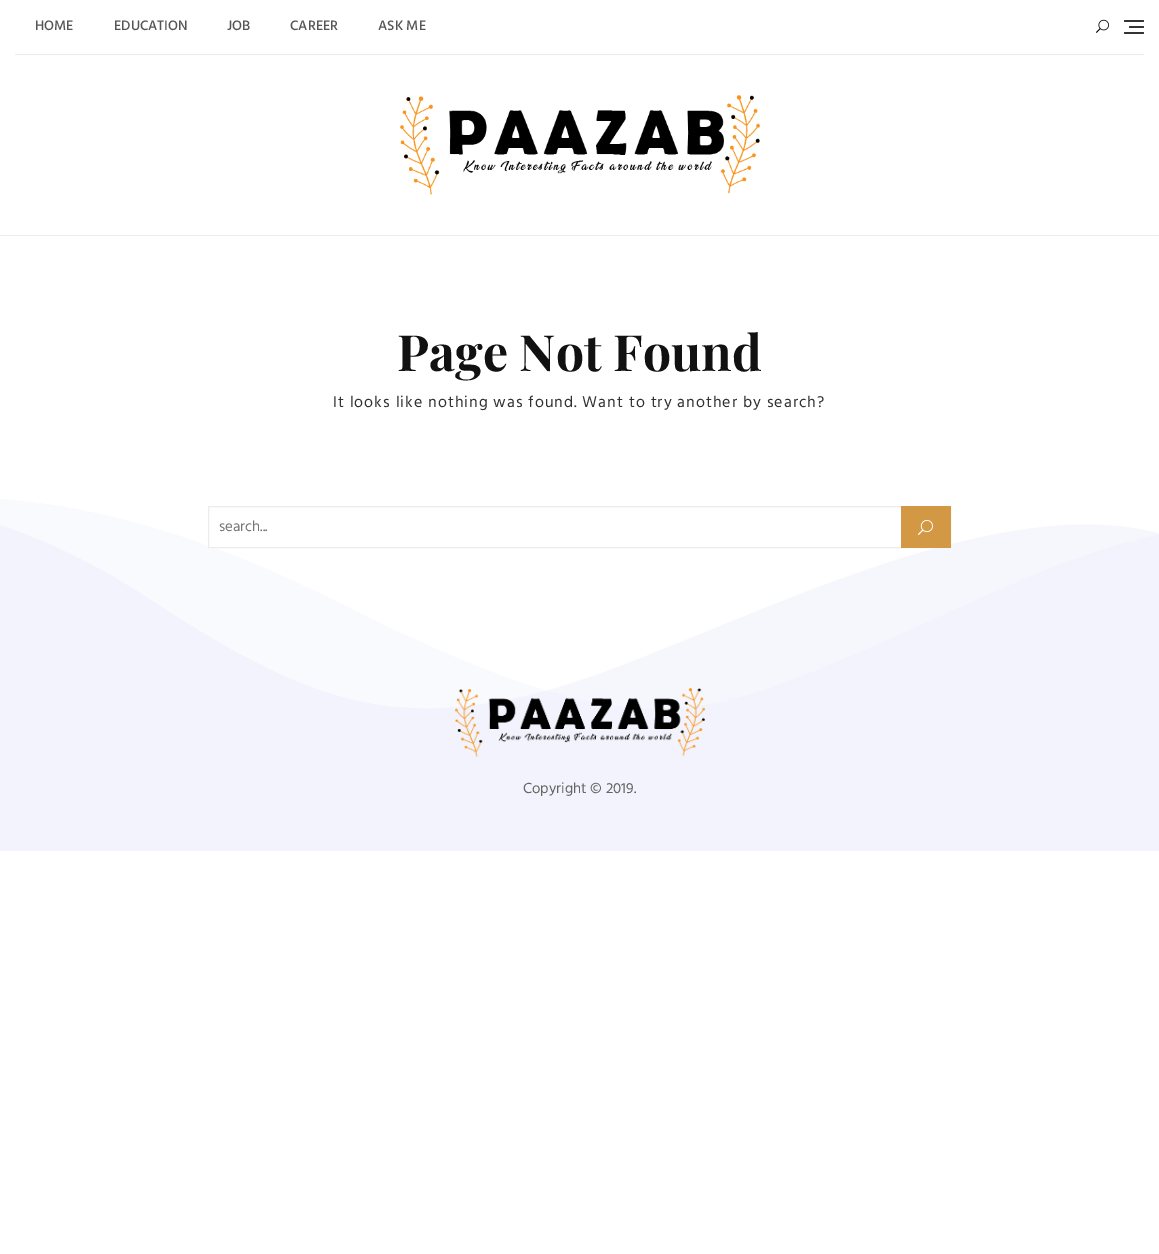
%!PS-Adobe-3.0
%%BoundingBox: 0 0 1159 1254
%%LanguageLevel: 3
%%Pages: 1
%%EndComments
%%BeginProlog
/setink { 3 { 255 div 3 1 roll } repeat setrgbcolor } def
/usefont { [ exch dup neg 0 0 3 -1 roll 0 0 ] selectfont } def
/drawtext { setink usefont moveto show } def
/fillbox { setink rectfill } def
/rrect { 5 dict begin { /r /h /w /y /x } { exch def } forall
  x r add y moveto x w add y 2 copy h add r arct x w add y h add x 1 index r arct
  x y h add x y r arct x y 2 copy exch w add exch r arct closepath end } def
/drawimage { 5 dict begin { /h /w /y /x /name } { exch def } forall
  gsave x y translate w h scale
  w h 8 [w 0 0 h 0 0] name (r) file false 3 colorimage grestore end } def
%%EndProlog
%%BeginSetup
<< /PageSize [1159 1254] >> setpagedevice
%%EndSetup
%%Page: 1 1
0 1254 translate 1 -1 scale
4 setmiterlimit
0 0 1159 1254 255 255 255 fillbox
15 54 1129 1 236 236 236 fillbox
(HOME) 35 30 /Hind-Medium 14 85 85 85 drawtext
(EDUCATION) 114 30 /Hind-Medium 14 85 85 85 drawtext
(JOB) 227 30 /Hind-Medium 14 85 85 85 drawtext
(CAREER) 290 30 /Hind-Medium 14 85 85 85 drawtext
(ASK ME) 378 30 /Hind-Medium 14 85 85 85 drawtext
(assets/img1.rgb) 1096 19 13 14 drawimage
51 51 51 setink
1129 26 15 2 1 rrect fill
1124 20 20 2 1 rrect fill
1124 32 20 2 1 rrect fill
(assets/img2.rgb) 400 95 360 100 drawimage
0 235 1159 1 236 236 236 fillbox
(Page Not Found) 397 371 /PlayfairDisplay-Bold 50 17 17 17 drawtext
/Hind-Regular 16 usefont
49 49 49 setink
333 407 moveto 1 0 (It looks like nothing was found. Want to try another by search?) ashow
(assets/img4.rgb) 0 499 1159 352 drawimage
209 546 2 1 255 255 255 fillbox
236 236 236 setink
208.5 506.5 742 41 rectstroke
(search...) 219 531 /Hind-Regular 15 117 117 117 drawtext
901 506 50 42 211 152 68 fillbox
(assets/img3.rgb) 918 519 15 16 drawimage
(assets/img5.rgb) 455 688 250 69 drawimage
(Copyright © 2019.) 523 793 /Hind-Regular 15 101 101 101 drawtext
showpage
%%EOF
